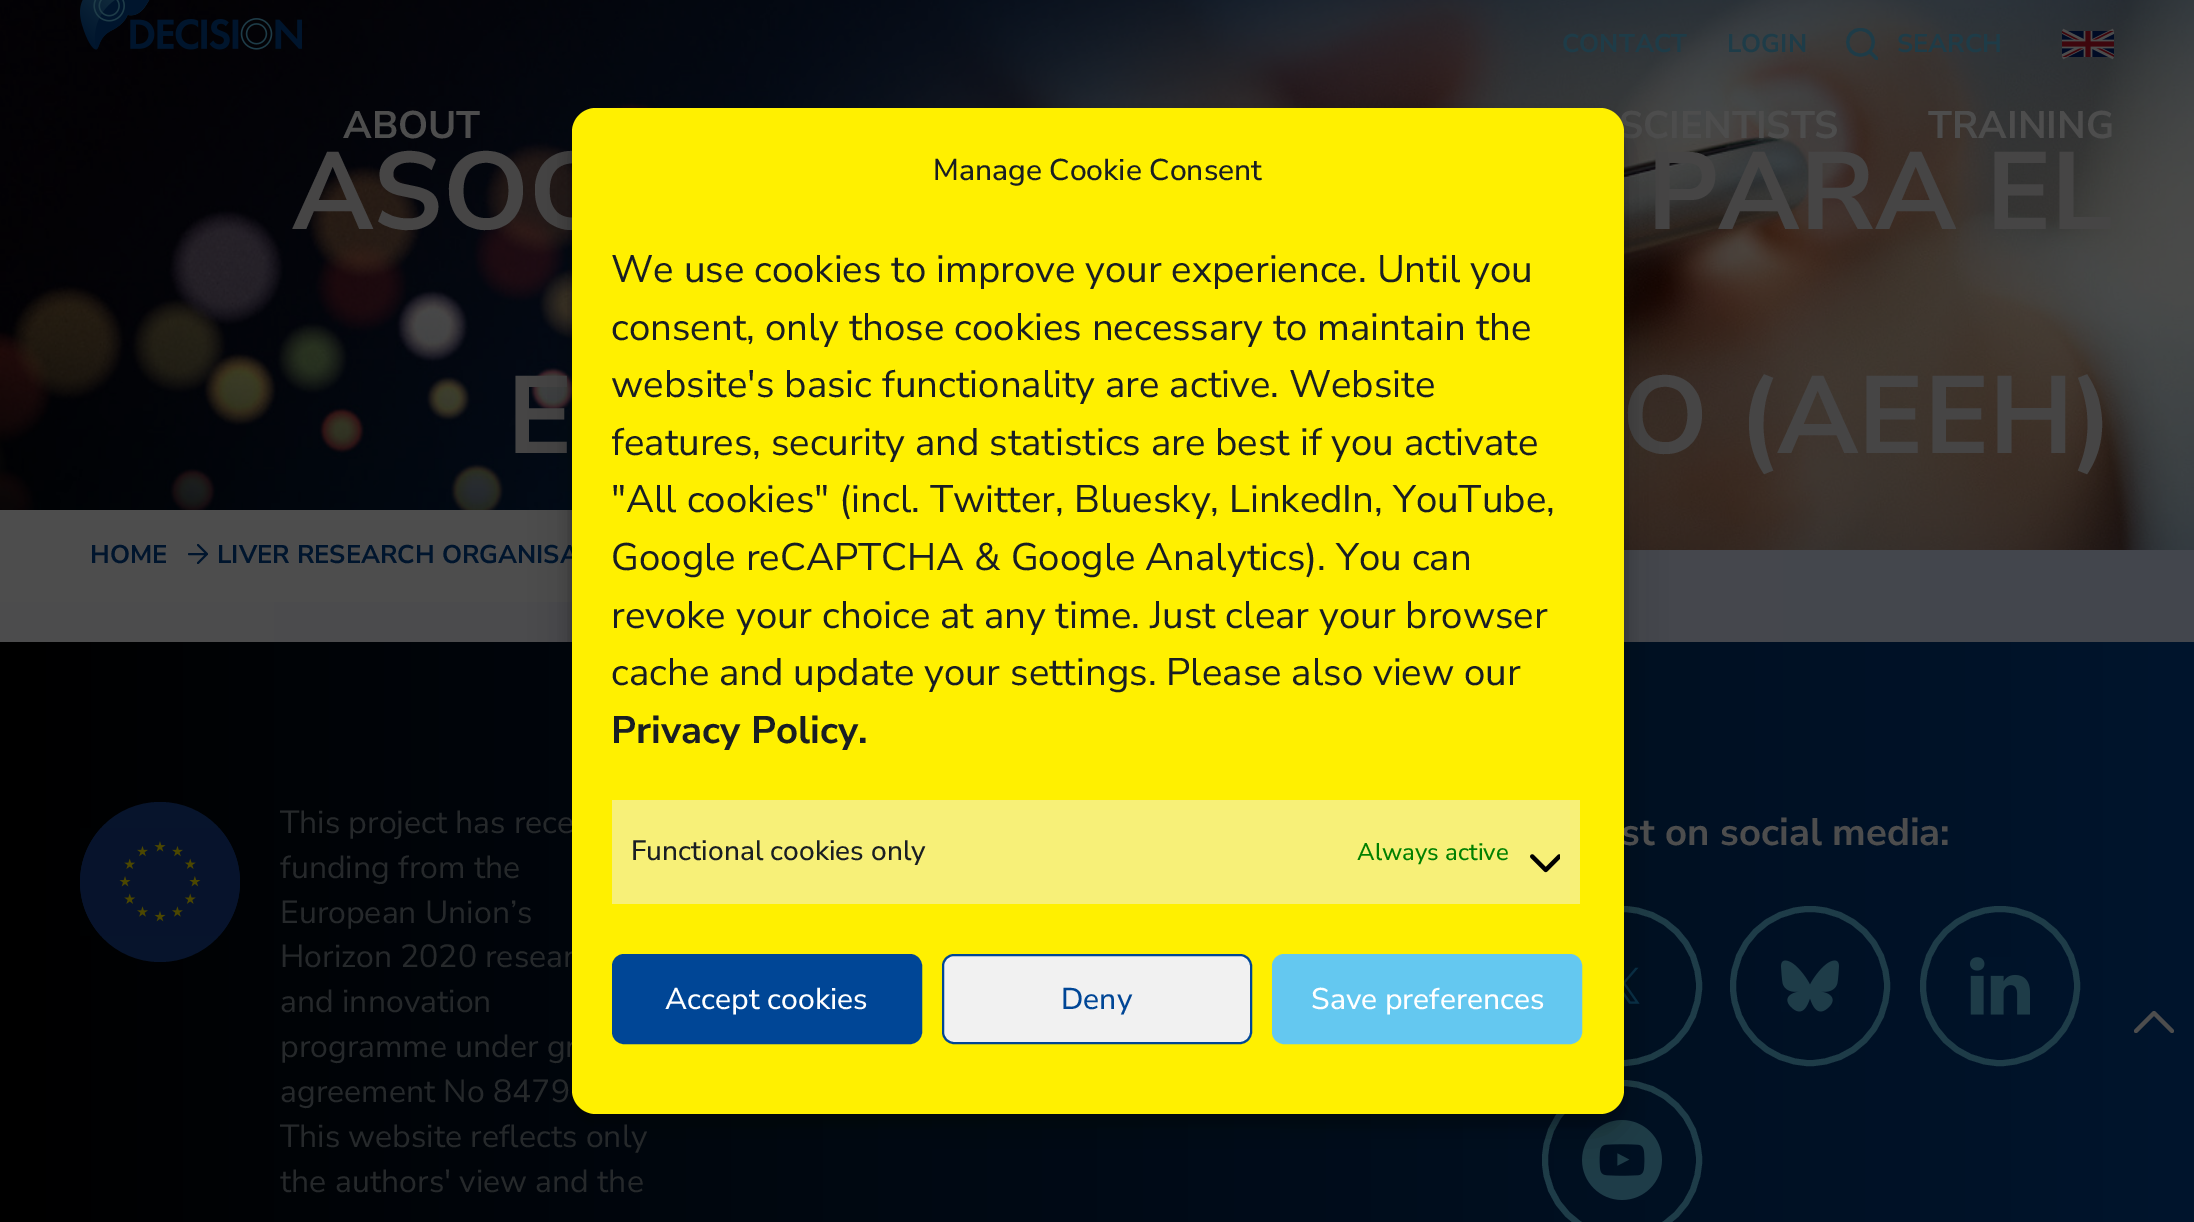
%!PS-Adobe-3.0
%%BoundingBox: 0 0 2194 1222
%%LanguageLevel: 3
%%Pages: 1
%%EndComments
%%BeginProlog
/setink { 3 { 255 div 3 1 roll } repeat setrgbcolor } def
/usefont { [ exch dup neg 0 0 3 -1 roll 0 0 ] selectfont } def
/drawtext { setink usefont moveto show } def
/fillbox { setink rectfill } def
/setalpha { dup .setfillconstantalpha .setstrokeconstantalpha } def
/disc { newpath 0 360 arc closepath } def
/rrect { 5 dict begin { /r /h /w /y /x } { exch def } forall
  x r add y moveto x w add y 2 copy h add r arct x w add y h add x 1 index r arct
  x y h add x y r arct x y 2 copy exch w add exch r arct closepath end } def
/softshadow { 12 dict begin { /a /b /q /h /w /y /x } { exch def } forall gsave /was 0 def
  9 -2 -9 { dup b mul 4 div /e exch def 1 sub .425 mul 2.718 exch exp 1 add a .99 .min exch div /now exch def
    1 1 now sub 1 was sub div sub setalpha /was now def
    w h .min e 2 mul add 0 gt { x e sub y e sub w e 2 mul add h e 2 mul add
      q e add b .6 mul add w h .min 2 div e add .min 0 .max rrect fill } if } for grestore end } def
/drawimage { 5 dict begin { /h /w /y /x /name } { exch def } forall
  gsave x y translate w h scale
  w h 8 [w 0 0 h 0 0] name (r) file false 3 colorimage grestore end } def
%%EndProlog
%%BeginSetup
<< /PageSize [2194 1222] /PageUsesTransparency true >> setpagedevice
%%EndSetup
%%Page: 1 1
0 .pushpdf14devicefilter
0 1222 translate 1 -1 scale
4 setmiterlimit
0 0 2194 1222 255 255 255 fillbox
gsave 0 550 moveto 2194 550 lineto 2194 642 lineto 0 642 lineto closepath clip newpath
<< /ShadingType 2 /ColorSpace /DeviceRGB /Coords [0 549 2194 549] /Extend [true true] /Function << /FunctionType 2 /Domain [0 1] /C0 [0.302 0.302 0.302] /C1 [0.263 0.275 0.302] /N 1 >> >> shfill grestore
(assets/img3.rgb) 0 0 2194 550 drawimage
(assets/img1.rgb) 80 0 222 50 drawimage
(CONTACT) 1562 52 /NunitoSans-Bold 25.6 30 60 72 drawtext
(LOGIN) 1727 52 /NunitoSans-Bold 25.6 30 60 72 drawtext
gsave
1846 28 32 32 rectclip
3.2 setlinewidth
1 setlinecap
1 setlinejoin
1860.5 29.5 moveto 1877.5 29.5 1877.5 55 1860.5 55 curveto 1843.5 55 1843.5 29.5 1860.5 29.5 curveto closepath 1876.5 58.5 moveto 1869.5 51.5 lineto stroke
grestore
(SEARCH) 1897 52 /NunitoSans-Bold 25.6 30 60 72 drawtext
(assets/img2.rgb) 2062 28 52 32 drawimage
(ABOUT) 343 138 /NunitoSans-Bold 38.4 77 77 77 drawtext
(SCIENTISTS) 1619 138 /NunitoSans-Bold 38.4 77 77 77 drawtext
(TRAINING) 1928 138 /NunitoSans-Bold 38.4 77 77 77 drawtext
(ASOC) 292 229 /NunitoSans-Bold 109.5 70 69 69 drawtext
(PARA EL) 1647 229 /NunitoSans-Bold 109.5 70 69 69 drawtext
(E) 507 453 /NunitoSans-Bold 109.5 70 69 69 drawtext
(O \(AEEH\)) 1622 453 /NunitoSans-Bold 109.5 70 69 69 drawtext
0 510 572 92 77 77 77 fillbox
(HOME) 90 563 /NunitoSans-Bold 25.6 0 21 45 drawtext
2 setlinewidth
1 setlinecap
1 setlinejoin
198 563 moveto 207 554 lineto 198 545 lineto 189 554 moveto 207 554 lineto stroke
(LIVER RESEARCH ORGANISA) 217 563 /NunitoSans-Bold 25.6 0 21 45 drawtext
gsave 0 642 moveto 2194 642 lineto 2194 1222 lineto 0 1222 lineto closepath clip newpath
<< /ShadingType 2 /ColorSpace /DeviceRGB /Coords [0 1160 2194 1160] /Extend [true true] /Function << /FunctionType 2 /Domain [0 1] /C0 [0 0 0] /C1 [0 0.082 0.176] /N 1 >> >> shfill grestore
(assets/img6.rgb) 1624 967 16 37 drawimage
30 60 72 setink
6 setlinewidth
0 setlinecap
0 setlinejoin
1622 986 77 disc stroke
(assets/img9.rgb) 1582 1120 80 80 drawimage
1622 1160 77 disc stroke
0 0 0 setink
572 120 1052 1006 24 6 0.23 softshadow
572 128 1052 1006 24 20 0.19 softshadow
(This project has rece) 280 833 /NunitoSans-Regular 32 38 41 43 drawtext
(Horizon 2020 resear) 280 967 /NunitoSans-Regular 32 38 41 43 drawtext
(programme under gr) 280 1057 /NunitoSans-Regular 32 38 41 43 drawtext
(st on social media:) 1621 845 /NunitoSans-Bold 38.4 77 77 77 drawtext
255 240 0 setink
572 108 1052 1006 24 rrect fill
(Manage Cookie Consent) 933 180 /NunitoSans-Medium 30 25 30 35 drawtext
(We use cookies to improve your experience. Until you) 611 282 /NunitoSans-Regular 38.4 25 30 35 drawtext
(consent, only those cookies necessary to maintain the) 611 340 /NunitoSans-Regular 38.4 25 30 35 drawtext
(website's basic functionality are active. Website) 611 397 /NunitoSans-Regular 38.4 25 30 35 drawtext
gsave
612 242 972 672 rectclip
(features, security and statistics are best if you activate) 611 455 /NunitoSans-Regular 38.4 25 30 35 drawtext
grestore
("All cookies" \(incl. Twitter, Bluesky, LinkedIn, YouTube,) 611 512 /NunitoSans-Regular 38.4 25 30 35 drawtext
(Google reCAPTCHA & Google Analytics\). You can) 611 570 /NunitoSans-Regular 38.4 25 30 35 drawtext
(revoke your choice at any time. Just clear your browser) 611 628 /NunitoSans-Regular 38.4 25 30 35 drawtext
(cache and update your settings. Please also view our) 611 685 /NunitoSans-Regular 38.4 25 30 35 drawtext
(Privacy Policy.) 611 743 /NunitoSans-Bold 38.4 25 30 35 drawtext
612 800 968 104 247 240 120 fillbox
(Functional cookies only) 631 860 /NunitoSans-Medium 28 25 30 35 drawtext
(Always active) 1357 860 /NunitoSans-Medium 24 0 128 0 drawtext
(assets/img4.rgb) 1530 854 30 19 drawimage
0 70 150 setink
613 955 308 88 11 rrect gsave fill grestore
2 setlinewidth
stroke
(Accept cookies) 665 1009 /NunitoSans-Medium 30 255 255 255 drawtext
241 241 241 setink
943 955 308 88 11 rrect gsave fill grestore
0 70 150 setink
stroke
(Deny) 1061 1009 /NunitoSans-Medium 30 0 70 150 drawtext
100 200 240 setink
1273 955 308 88 11 rrect gsave fill grestore
stroke
(Save preferences) 1311 1009 /NunitoSans-Medium 30 255 255 255 drawtext
7 20 44 setink
160 882 80 disc fill
(assets/img5.rgb) 80 828 160 108 drawimage
(funding from the) 280 878 /NunitoSans-Regular 32 38 41 43 drawtext
(European Union’s) 280 923 /NunitoSans-Regular 32 38 41 43 drawtext
(and) 280 1012 /NunitoSans-Regular 32 38 41 43 drawtext
(innovation) 342 1012 /NunitoSans-Regular 32 38 41 43 drawtext
(agreement No 8479) 280 1102 /NunitoSans-Regular 32 38 41 43 drawtext
(This website reflects only) 280 1147 /NunitoSans-Regular 32 38 41 43 drawtext
(the) 280 1192 /NunitoSans-Regular 32 38 41 43 drawtext
(authors' view and the) 335 1192 /NunitoSans-Regular 32 38 41 43 drawtext
(assets/img7.rgb) 1781 960 58 52 drawimage
30 60 72 setink
6 setlinewidth
1810 986 77 disc stroke
(assets/img8.rgb) 1970 957 60 58 drawimage
2000 986 77 disc stroke
77 77 77 setink
4 setlinewidth
1 setlinecap
1 setlinejoin
2172 1031 moveto 2154 1013 lineto 2136 1031 lineto stroke
.poppdf14devicefilter showpage
%%EOF
